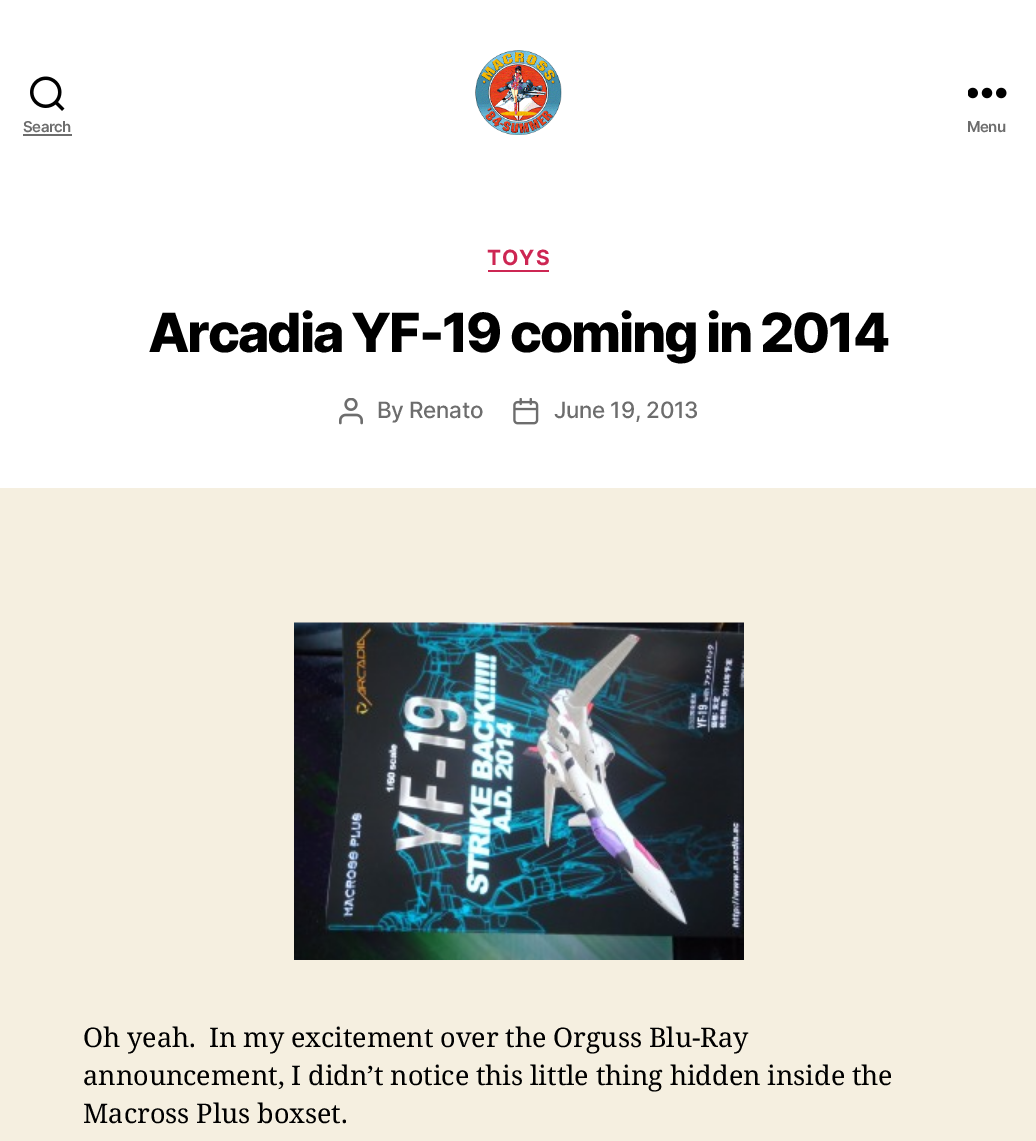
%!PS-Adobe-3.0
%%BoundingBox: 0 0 1036 1141
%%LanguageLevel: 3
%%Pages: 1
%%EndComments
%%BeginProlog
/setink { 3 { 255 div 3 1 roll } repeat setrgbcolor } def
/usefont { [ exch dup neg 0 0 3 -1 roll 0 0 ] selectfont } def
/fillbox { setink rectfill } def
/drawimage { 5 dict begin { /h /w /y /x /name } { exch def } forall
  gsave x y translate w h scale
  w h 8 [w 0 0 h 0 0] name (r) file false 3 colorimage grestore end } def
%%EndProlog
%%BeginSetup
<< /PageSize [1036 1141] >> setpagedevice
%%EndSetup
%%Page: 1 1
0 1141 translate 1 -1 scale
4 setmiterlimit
0 0 1036 1141 245 239 224 fillbox
0 0 1036 488 255 255 255 fillbox
(assets/img1.rgb) 30 76 35 35 drawimage
/Inter-SemiBold 15 usefont
109 109 109 setink
23 132 moveto -0.5 0 (Search) ashow
23 134 49 2 109 109 109 fillbox
(assets/img2.rgb) 475 50 87 85 drawimage
(assets/img3.rgb) 968 87 39 12 drawimage
967 132 moveto -0.5 0 (Menu) ashow
488 270 61 2 205 38 83 fillbox
/Inter-Bold 21 usefont
487 265 moveto 1 0 (TOYS) ashow
/Inter-ExtraBold 54 usefont
0 0 0 setink
148 352 moveto -2.25 0 (Arcadia YF-19 coming in 2014) ashow
(assets/img4.rgb) 339 398 24 27 drawimage
/Inter-Medium 22.5 usefont
109 109 109 setink
377 418 moveto -0.4 0 (By Renato) ashow
(assets/img5.rgb) 513 398 26 27 drawimage
554 418 moveto -0.4 0 (June 19, 2013) ashow
(assets/img6.rgb) 294 622 450 338 drawimage
/NotoSerif-Regular 27 usefont
0 0 0 setink
83 1047 moveto -0.25 0 32 (Oh yeah.) widthshow
209 1047 moveto -0.25 0 32 (In my excitement over the Orguss Blu-Ray) widthshow
83 1085 moveto -0.25 0 32 (announcement, I didn’t notice this little thing hidden inside the) widthshow
83 1123 moveto -0.25 0 32 (Macross Plus boxset.) widthshow
showpage
%%EOF
